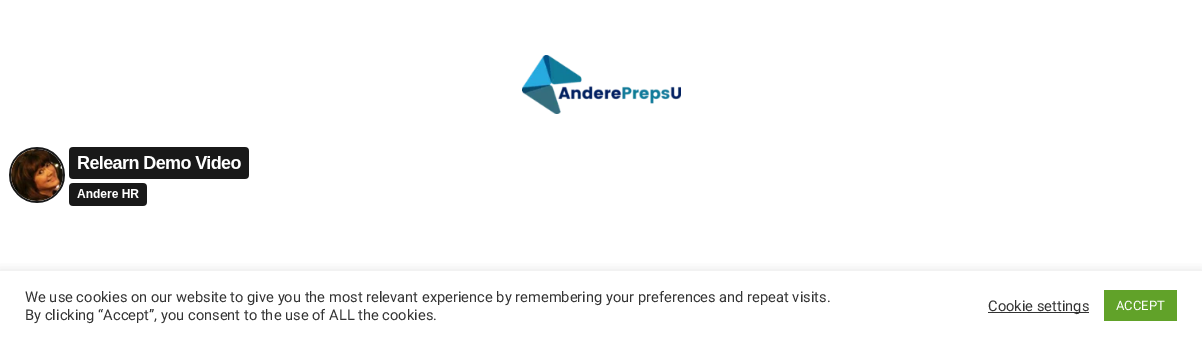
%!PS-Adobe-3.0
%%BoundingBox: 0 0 1202 340
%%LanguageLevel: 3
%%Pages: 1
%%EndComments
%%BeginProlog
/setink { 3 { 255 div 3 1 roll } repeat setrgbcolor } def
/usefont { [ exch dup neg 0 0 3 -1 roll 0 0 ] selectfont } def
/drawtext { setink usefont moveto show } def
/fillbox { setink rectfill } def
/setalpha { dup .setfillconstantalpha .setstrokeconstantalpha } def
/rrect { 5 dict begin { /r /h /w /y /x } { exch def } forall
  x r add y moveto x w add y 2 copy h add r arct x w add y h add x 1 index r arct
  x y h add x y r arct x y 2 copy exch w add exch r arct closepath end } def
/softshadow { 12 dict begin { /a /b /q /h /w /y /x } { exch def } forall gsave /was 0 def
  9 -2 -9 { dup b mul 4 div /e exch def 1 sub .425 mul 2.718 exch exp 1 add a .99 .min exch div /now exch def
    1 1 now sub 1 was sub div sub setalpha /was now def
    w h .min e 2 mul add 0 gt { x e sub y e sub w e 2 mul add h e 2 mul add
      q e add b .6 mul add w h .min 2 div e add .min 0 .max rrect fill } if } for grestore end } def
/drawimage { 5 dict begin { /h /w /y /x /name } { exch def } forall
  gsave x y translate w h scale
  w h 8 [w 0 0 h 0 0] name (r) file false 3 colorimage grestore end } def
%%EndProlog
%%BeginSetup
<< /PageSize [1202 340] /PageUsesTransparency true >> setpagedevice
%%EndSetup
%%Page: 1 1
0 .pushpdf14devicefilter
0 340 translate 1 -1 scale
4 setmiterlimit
0 0 1202 340 255 255 255 fillbox
(assets/img1.rgb) 522 55 159 59 drawimage
(assets/img2.rgb) 9 147 240 59 drawimage
gsave
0 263 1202 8 rectclip
172 171 171 setink
0 270 1202 69 0 5 0.3 softshadow
grestore
(We use cookies on our website to give you the most relevant experience by remembering your preferences and repeat visits.) 25 302 /Roboto-Regular 14.67 51 51 51 drawtext
(By clicking “Accept”, you consent to the use of ALL the cookies.) 25 320 /Roboto-Regular 14.67 51 51 51 drawtext
988 312 101 1 51 51 51 fillbox
(Cookie settings) 988 311 /Roboto-Regular 14.67 51 51 51 drawtext
1104 290 73 31 97 162 41 fillbox
(ACCEPT) 1116 310 /Roboto-Regular 13 255 255 255 drawtext
.poppdf14devicefilter showpage
%%EOF
